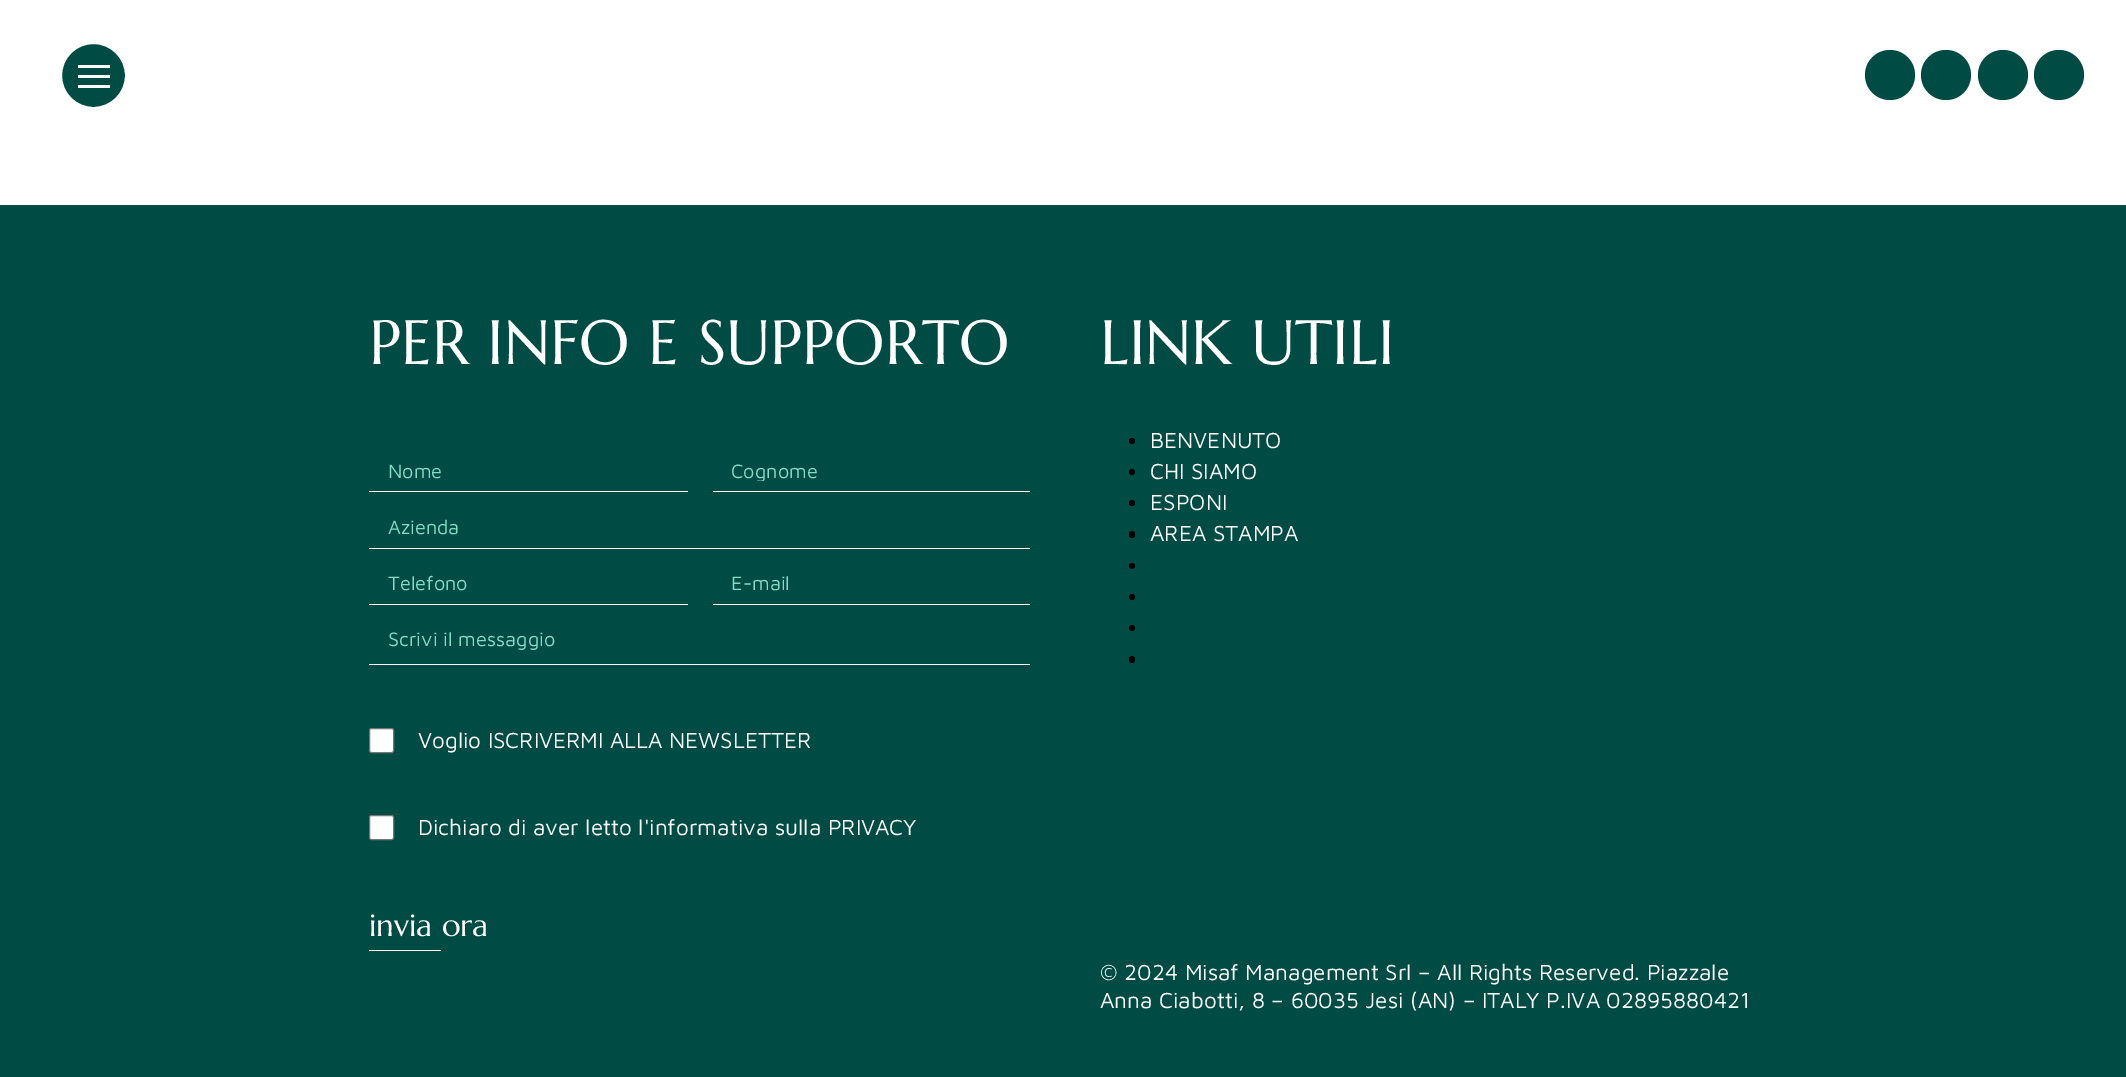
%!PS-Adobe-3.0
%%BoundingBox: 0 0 2126 1077
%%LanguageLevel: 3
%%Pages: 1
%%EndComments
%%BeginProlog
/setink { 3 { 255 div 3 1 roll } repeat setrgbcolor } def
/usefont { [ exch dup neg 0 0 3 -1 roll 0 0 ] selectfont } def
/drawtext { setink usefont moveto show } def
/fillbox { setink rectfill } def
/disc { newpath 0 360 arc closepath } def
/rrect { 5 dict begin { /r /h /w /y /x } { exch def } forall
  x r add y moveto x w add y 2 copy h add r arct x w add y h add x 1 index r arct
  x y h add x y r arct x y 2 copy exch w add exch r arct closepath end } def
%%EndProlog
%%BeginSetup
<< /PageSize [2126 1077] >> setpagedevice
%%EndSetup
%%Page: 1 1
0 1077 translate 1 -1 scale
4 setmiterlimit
0 0 2126 1077 255 255 255 fillbox
0 76 69 setink
93.5 75.5 33 disc gsave fill grestore
255 255 255 setink
3 setlinewidth
stroke
78 65 32 3 255 255 255 fillbox
78 75 32 3 255 255 255 fillbox
78 85 32 3 255 255 255 fillbox
0 76 69 setink
1890 75 25 disc fill
1946 75 25 disc fill
2003 75 25 disc fill
2059 75 25 disc fill
0 205 2126 872 0 76 69 fillbox
(PER INFO E SUPPORTO) 369 364 /Marcellus-Regular 62.5 255 255 255 drawtext
369 491 319 1 255 255 255 fillbox
(Nome) 388 478 /MavenPro-Regular 20 132 220 198 drawtext
713 491 317 1 255 255 255 fillbox
gsave
731 459 293 22 rectclip
(Cognome) 731 478 /MavenPro-Regular 20 132 220 198 drawtext
grestore
369 548 661 1 255 255 255 fillbox
(Azienda) 388 534 /MavenPro-Regular 20 132 220 198 drawtext
369 604 319 1 255 255 255 fillbox
(Telefono) 388 590 /MavenPro-Regular 20 132 220 198 drawtext
713 604 317 1 255 255 255 fillbox
(E-mail) 731 590 /MavenPro-Regular 20 132 220 198 drawtext
369 664 661 1 255 255 255 fillbox
(Scrivi il messaggio) 388 646 /MavenPro-Regular 20 132 220 198 drawtext
255 255 255 setink
369.5 728.5 24 24 2 rrect gsave fill grestore
118 118 118 setink
1 setlinewidth
stroke
(Voglio ISCRIVERMI ALLA NEWSLETTER) 418 748 /MavenPro-Regular 22.5 255 255 255 drawtext
369.5 815.5 24 24 2 rrect gsave fill grestore
118 118 118 setink
stroke
(Dichiaro di aver letto l'informativa sulla PRIVACY) 418 835 /MavenPro-Regular 22.5 255 255 255 drawtext
(invia ora) 369 936 /Marcellus-Regular 31 255 255 255 drawtext
369 950 72 1 255 255 255 fillbox
(LINK UTILI) 1100 364 /Marcellus-Regular 62.5 255 255 255 drawtext
0 0 0 setink
1132 441 3 disc fill
(BENVENUTO) 1150 448 /MavenPro-Regular 22.5 255 255 255 drawtext
0 0 0 setink
1132 472 3 disc fill
(CHI SIAMO) 1150 479 /MavenPro-Regular 22.5 255 255 255 drawtext
0 0 0 setink
1132 503 3 disc fill
(ESPONI) 1150 510 /MavenPro-Regular 22.5 255 255 255 drawtext
0 0 0 setink
1129 531 6 7 3 rrect fill
(AREA STAMPA) 1150 541 /MavenPro-Regular 22.5 255 255 255 drawtext
0 0 0 setink
1132 566 3 disc fill
1132 597 3 disc fill
1132 628 3 disc fill
1129 656 6 7 3 rrect fill
(© 2024 Misaf Management Srl – All Rights Reserved. Piazzale) 1100 980 /MavenPro-Regular 22.5 255 255 255 drawtext
(Anna Ciabotti, 8 – 60035 Jesi \(AN\) – ITALY P.IVA 02895880421) 1100 1008 /MavenPro-Regular 22.5 255 255 255 drawtext
showpage
%%EOF
